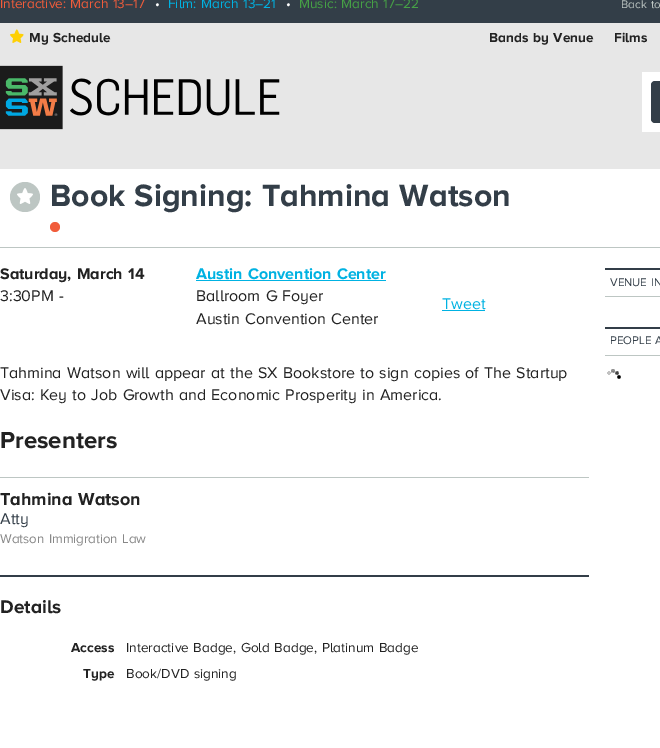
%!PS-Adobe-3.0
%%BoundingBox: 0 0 660 748
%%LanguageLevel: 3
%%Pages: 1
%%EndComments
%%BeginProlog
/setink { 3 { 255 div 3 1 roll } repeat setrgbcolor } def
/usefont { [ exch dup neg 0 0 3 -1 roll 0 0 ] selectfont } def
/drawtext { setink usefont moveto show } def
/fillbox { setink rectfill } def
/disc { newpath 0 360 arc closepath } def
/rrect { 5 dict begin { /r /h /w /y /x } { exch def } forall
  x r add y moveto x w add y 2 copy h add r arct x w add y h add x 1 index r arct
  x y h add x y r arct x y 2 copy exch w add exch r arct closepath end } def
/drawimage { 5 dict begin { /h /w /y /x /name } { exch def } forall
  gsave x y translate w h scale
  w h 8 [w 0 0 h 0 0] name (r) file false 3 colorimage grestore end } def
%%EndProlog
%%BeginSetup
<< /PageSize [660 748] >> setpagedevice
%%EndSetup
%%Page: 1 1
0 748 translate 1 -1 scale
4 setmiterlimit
0 0 660 748 231 231 231 fillbox
0 0 660 23 51 62 72 fillbox
/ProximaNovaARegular-Regular 13.6 usefont
241 92 59 setink
0 8 moveto 1.1 0 32 (Interactive: March 13–17) widthshow
(•) 155 8 /ProximaNovaARegular-Regular 13.6 255 255 255 drawtext
0 178 226 setink
168 8 moveto 1.1 0 32 (Film: March 13–21) widthshow
(•) 286 8 /ProximaNovaARegular-Regular 13.6 255 255 255 drawtext
70 161 70 setink
299 8 moveto 1.1 0 32 (Music: March 17–22) widthshow
/ProximaNovaARegular-Regular 11.5 usefont
189 198 195 setink
621 8 moveto 1.1 0 32 (Back to) widthshow
(assets/img1.rgb) 10 29 14 14 drawimage
/ProximaNovaARegular-Bold 13.6 usefont
34 34 34 setink
29 42 moveto 1.1 0 32 (My Schedule) widthshow
489 42 moveto 1.1 0 32 (Bands by Venue) widthshow
(Films) 614 42 /ProximaNovaARegular-Bold 13.6 34 34 34 drawtext
(assets/img2.rgb) 0 65 280 65 drawimage
642 72 18 60 255 255 255 fillbox
51 62 72 setink
651 81 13 42 4 rrect fill
0 169 660 579 255 255 255 fillbox
0 247 660 1 189 198 195 fillbox
25 197 15 disc fill
(assets/img3.rgb) 17 188 16 16 drawimage
/ProximaNovaARegular-Bold 32 usefont
51 62 72 setink
50 206 moveto 1.1 0 32 (Book Signing: Tahmina Watson) widthshow
241 92 59 setink
55 227 5 disc fill
/ProximaNovaARegular-Bold 16 usefont
34 34 34 setink
0 279 moveto 1.1 0 32 (Saturday, March 14) widthshow
/ProximaNovaARegular-Regular 16 usefont
0 301 moveto 1.1 0 32 (3:30PM -) widthshow
/ProximaNovaARegular-Bold 16 usefont
0 178 226 setink
196 279 moveto 1.1 0 32 (Austin Convention Center) widthshow
196 280 190 1 0 178 226 fillbox
/ProximaNovaARegular-Regular 16 usefont
34 34 34 setink
196 301 moveto 1.1 0 32 (Ballroom G Foyer) widthshow
196 324 moveto 1.1 0 32 (Austin Convention Center) widthshow
(Tweet) 442 309 /ProximaNovaARegular-Regular 16 0 178 226 drawtext
442 310 43 1 0 178 226 fillbox
34 34 34 setink
0 378 moveto 1.1 0 32 (Tahmina Watson will appear at the SX Bookstore to sign copies of The Startup) widthshow
0 400 moveto 1.1 0 32 (Visa: Key to Job Growth and Economic Prosperity in America.) widthshow
(Presenters) 0 448 /ProximaNovaARegular-Bold 24 34 34 34 drawtext
0 477 589 1 189 198 195 fillbox
/ProximaNovaARegular-Bold 18 usefont
34 34 34 setink
0 505 moveto 1.1 0 32 (Tahmina Watson) widthshow
(Atty) 0 524 /ProximaNovaARegular-Regular 16 51 62 72 drawtext
/ProximaNovaARegular-Regular 13.25 usefont
136 136 136 setink
0 543 moveto 1.1 0 32 (Watson Immigration Law) widthshow
0 575 589 2 51 62 72 fillbox
(Details) 0 613 /ProximaNovaARegular-Bold 19 34 34 34 drawtext
(Access) 71 652 /ProximaNovaARegular-Bold 13.6 34 34 34 drawtext
/ProximaNovaARegular-Regular 13.6 usefont
126 652 moveto 1.1 0 32 (Interactive Badge, Gold Badge, Platinum Badge) widthshow
(Type) 83 678 /ProximaNovaARegular-Bold 13.6 34 34 34 drawtext
/ProximaNovaARegular-Regular 13.6 usefont
126 678 moveto 1.1 0 32 (Book/DVD signing) widthshow
605 268 55 2 51 62 72 fillbox
605 296 55 1 189 198 195 fillbox
/ProximaNovaARegular-Regular 11.5 usefont
51 62 72 setink
610 286 moveto 1.1 0 32 (VENUE IN) widthshow
605 327 55 2 51 62 72 fillbox
605 355 55 1 189 198 195 fillbox
51 62 72 setink
610 344 moveto 1.1 0 32 (PEOPLE A) widthshow
(assets/img4.rgb) 607 369 14 10 drawimage
showpage
%%EOF
